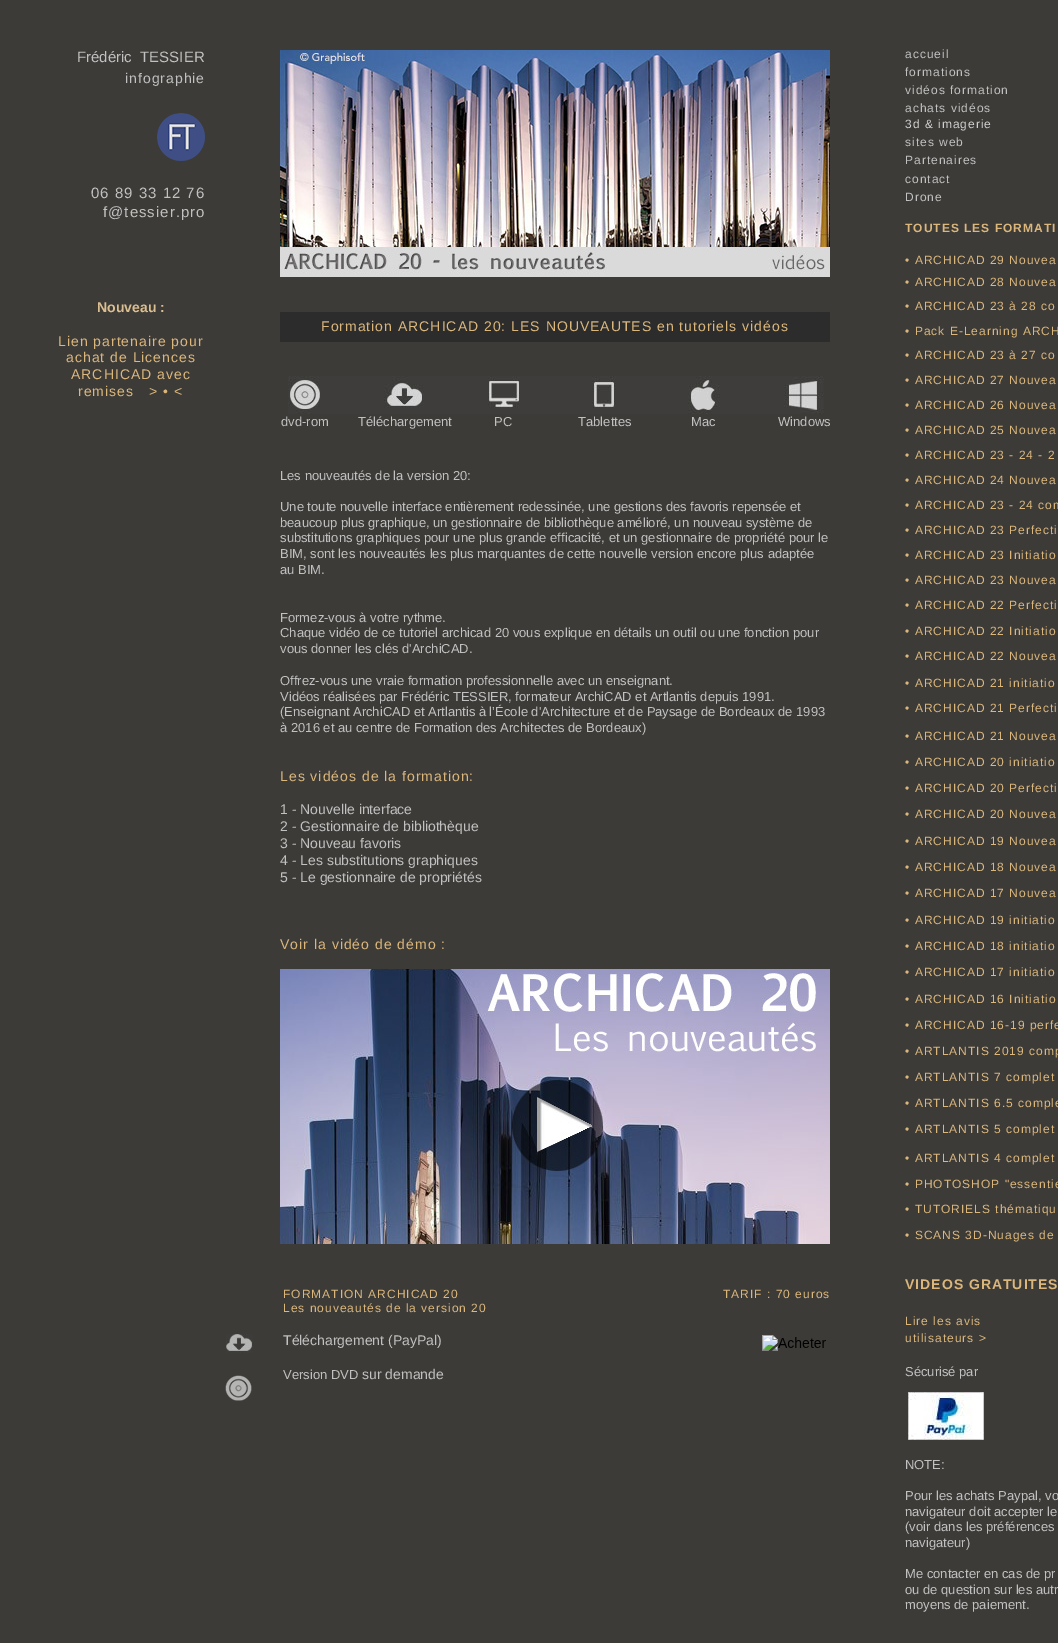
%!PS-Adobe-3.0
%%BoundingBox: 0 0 1058 1643
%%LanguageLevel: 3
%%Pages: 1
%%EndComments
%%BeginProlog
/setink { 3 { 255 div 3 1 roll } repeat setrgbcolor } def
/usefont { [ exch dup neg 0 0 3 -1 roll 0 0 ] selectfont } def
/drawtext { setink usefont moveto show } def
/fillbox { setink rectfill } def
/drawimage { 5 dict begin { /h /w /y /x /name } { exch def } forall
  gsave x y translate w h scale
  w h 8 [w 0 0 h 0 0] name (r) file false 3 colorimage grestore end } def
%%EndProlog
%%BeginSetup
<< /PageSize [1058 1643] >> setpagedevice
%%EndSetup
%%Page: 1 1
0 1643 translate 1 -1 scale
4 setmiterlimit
0 0 1058 1643 60 59 56 fillbox
(Frédéric  TESSIER) 77 62 /LiberationSans-Regular 15 193 193 193 drawtext
/LiberationSans-Regular 14 usefont
125 83 moveto 1 0 (infographie) ashow
(assets/img1.rgb) 157 113 48 48 drawimage
/LiberationSans-Regular 15 usefont
91 198 moveto 1 0 (06 89 33 12 76) ashow
103 217 moveto 1 0 (f@tessier.pro) ashow
(Nouveau :) 97 312 /LiberationSans-Bold 14 220 191 145 drawtext
/LiberationSans-Regular 14 usefont
219 183 124 setink
58 346 moveto 1 0 (Lien partenaire pour) ashow
66 362 moveto 1 0 (achat de Licences) ashow
71 379 moveto 1 0 (ARCHICAD avec) ashow
78 396 moveto 1 0 (remises) ashow
149 396 moveto 1 0 (> • <) ashow
/LiberationSans-Regular 12 usefont
193 193 193 setink
905 58 moveto 1 0 (accueil) ashow
905 76 moveto 1 0 (formations) ashow
905 94 moveto 1 0 (vidéos formation) ashow
905 112 moveto 1 0 (achats vidéos) ashow
208 208 208 setink
905 128 moveto 1 0 (3d & imagerie) ashow
193 193 193 setink
905 146 moveto 1 0 (sites web) ashow
905 164 moveto 1 0 (Partenaires) ashow
905 183 moveto 1 0 (contact) ashow
905 201 moveto 1 0 (Drone) ashow
/LiberationSans-Bold 12 usefont
219 183 124 setink
905 232 moveto 1 0 (TOUTES LES FORMATI) ashow
/LiberationSans-Regular 12 usefont
905 264 moveto 1 0 (• ARCHICAD 29 Nouvea) ashow
905 286 moveto 1 0 (• ARCHICAD 28 Nouvea) ashow
905 310 moveto 1 0 (• ARCHICAD 23 à 28 co) ashow
905 335 moveto 1 0 (• Pack E-Learning ARCH) ashow
905 359 moveto 1 0 (• ARCHICAD 23 à 27 co) ashow
905 384 moveto 1 0 (• ARCHICAD 27 Nouvea) ashow
905 409 moveto 1 0 (• ARCHICAD 26 Nouvea) ashow
905 434 moveto 1 0 (• ARCHICAD 25 Nouvea) ashow
905 459 moveto 1 0 (• ARCHICAD 23 - 24 - 2) ashow
905 484 moveto 1 0 (• ARCHICAD 24 Nouvea) ashow
905 509 moveto 1 0 (• ARCHICAD 23 - 24 com) ashow
905 534 moveto 1 0 (• ARCHICAD 23 Perfecti) ashow
905 559 moveto 1 0 (• ARCHICAD 23 Initiatio) ashow
905 584 moveto 1 0 (• ARCHICAD 23 Nouvea) ashow
905 609 moveto 1 0 (• ARCHICAD 22 Perfecti) ashow
905 635 moveto 1 0 (• ARCHICAD 22 Initiatio) ashow
905 660 moveto 1 0 (• ARCHICAD 22 Nouvea) ashow
905 687 moveto 1 0 (• ARCHICAD 21 initiatio) ashow
905 712 moveto 1 0 (• ARCHICAD 21 Perfecti) ashow
905 740 moveto 1 0 (• ARCHICAD 21 Nouvea) ashow
905 766 moveto 1 0 (• ARCHICAD 20 initiatio) ashow
905 792 moveto 1 0 (• ARCHICAD 20 Perfecti) ashow
905 818 moveto 1 0 (• ARCHICAD 20 Nouvea) ashow
905 845 moveto 1 0 (• ARCHICAD 19 Nouvea) ashow
905 871 moveto 1 0 (• ARCHICAD 18 Nouvea) ashow
905 897 moveto 1 0 (• ARCHICAD 17 Nouvea) ashow
905 924 moveto 1 0 (• ARCHICAD 19 initiatio) ashow
905 950 moveto 1 0 (• ARCHICAD 18 initiatio) ashow
905 976 moveto 1 0 (• ARCHICAD 17 initiatio) ashow
905 1003 moveto 1 0 (• ARCHICAD 16 Initiatio) ashow
905 1029 moveto 1 0 (• ARCHICAD 16-19 perfe) ashow
905 1055 moveto 1 0 (• ARTLANTIS 2019 comp) ashow
905 1081 moveto 1 0 (• ARTLANTIS 7 complet) ashow
905 1107 moveto 1 0 (• ARTLANTIS 6.5 comple) ashow
905 1133 moveto 1 0 (• ARTLANTIS 5 complet) ashow
905 1162 moveto 1 0 (• ARTLANTIS 4 complet) ashow
905 1188 moveto 1 0 (• PHOTOSHOP "essentie) ashow
905 1213 moveto 1 0 (• TUTORIELS thématiqu) ashow
905 1239 moveto 1 0 (• SCANS 3D-Nuages de) ashow
/LiberationSans-Bold 14 usefont
905 1289 moveto 1 0 (VIDEOS GRATUITES) ashow
/LiberationSans-Regular 12 usefont
905 1325 moveto 1 0 (Lire les avis) ashow
905 1342 moveto 1 0 (utilisateurs >) ashow
(Sécurisé par) 905 1376 /LiberationSans-Regular 13 193 193 193 drawtext
(assets/img2.rgb) 908 1392 76 48 drawimage
(NOTE:) 905 1469 /LiberationSans-Regular 13 193 193 193 drawtext
(Pour les achats Paypal, vo) 905 1500 /LiberationSans-Regular 13 193 193 193 drawtext
(navigateur doit accepter le) 905 1516 /LiberationSans-Regular 13 193 193 193 drawtext
(\(voir dans les préférences) 905 1531 /LiberationSans-Regular 13 193 193 193 drawtext
(navigateur\)) 905 1547 /LiberationSans-Regular 13 193 193 193 drawtext
(Me contacter en cas de pr) 905 1578 /LiberationSans-Regular 13 193 193 193 drawtext
(ou de question sur les autr) 905 1594 /LiberationSans-Regular 13 193 193 193 drawtext
(moyens de paiement.) 905 1609 /LiberationSans-Regular 13 193 193 193 drawtext
(assets/img3.rgb) 226 1334 27 19 drawimage
(assets/img4.rgb) 225 1375 27 26 drawimage
(assets/img5.rgb) 280 50 550 227 drawimage
280 312 550 30 44 44 44 fillbox
/LiberationSans-Regular 14 usefont
219 183 124 setink
321 331 moveto 1 0 (Formation ARCHICAD 20: LES NOUVEAUTES en tutoriels vidéos) ashow
(assets/img6.rgb) 288 376 536 38 drawimage
(dvd-rom) 281 426 /LiberationSans-Regular 13 193 193 193 drawtext
(Téléchargement) 358 426 /LiberationSans-Regular 13 193 193 193 drawtext
(PC) 494 426 /LiberationSans-Regular 13 193 193 193 drawtext
(Tablettes) 578 426 /LiberationSans-Regular 13 193 193 193 drawtext
(Mac) 691 426 /LiberationSans-Regular 13 193 193 193 drawtext
(Windows) 778 426 /LiberationSans-Regular 13 193 193 193 drawtext
(Les nouveautés de la version 20:) 280 480 /LiberationSans-Regular 13 193 193 193 drawtext
(Une toute nouvelle interface entièrement redessinée, une gestions des favoris repensée et) 280 511 /LiberationSans-Regular 13 193 193 193 drawtext
(beaucoup plus graphique, un gestionnaire de bibliothèque amélioré, un nouveau système de) 280 527 /LiberationSans-Regular 13 193 193 193 drawtext
(substitutions graphiques pour une plus grande efficacité, et un gestionnaire de propriété pour le) 280 542 /LiberationSans-Regular 13 193 193 193 drawtext
(BIM, sont les nouveautés les plus marquantes de cette nouvelle version encore plus adaptée) 280 558 /LiberationSans-Regular 13 193 193 193 drawtext
(au BIM.) 280 574 /LiberationSans-Regular 13 193 193 193 drawtext
(Formez-vous à votre rythme.) 280 622 /LiberationSans-Regular 13 193 193 193 drawtext
(Chaque vidéo de ce tutoriel archicad 20 vous explique en détails un outil ou une fonction pour) 280 637 /LiberationSans-Regular 13 193 193 193 drawtext
(vous donner les clés d'ArchiCAD.) 280 653 /LiberationSans-Regular 13 193 193 193 drawtext
(Offrez-vous une vraie formation professionnelle avec un enseignant.) 280 685 /LiberationSans-Regular 13 193 193 193 drawtext
(Vidéos réalisées par Frédéric TESSIER, formateur ArchiCAD et Artlantis depuis 1991.) 280 701 /LiberationSans-Regular 13 193 193 193 drawtext
(\(Enseignant ArchiCAD et Artlantis à l’École d'Architecture et de Paysage de Bordeaux de 1993) 280 716 /LiberationSans-Regular 13 193 193 193 drawtext
(à 2016 et au centre de Formation des Architectes de Bordeaux\)) 280 732 /LiberationSans-Regular 13 193 193 193 drawtext
/LiberationSans-Regular 14 usefont
219 183 124 setink
280 781 moveto 1 0 (Les vidéos de la formation:) ashow
(1 - Nouvelle interface) 280 814 /LiberationSans-Regular 14 193 193 193 drawtext
(2 - Gestionnaire de bibliothèque) 280 831 /LiberationSans-Regular 14 193 193 193 drawtext
(3 - Nouveau favoris) 280 848 /LiberationSans-Regular 14 193 193 193 drawtext
(4 - Les substitutions graphiques) 280 865 /LiberationSans-Regular 14 193 193 193 drawtext
(5 - Le gestionnaire de propriétés) 280 882 /LiberationSans-Regular 14 193 193 193 drawtext
219 183 124 setink
280 949 moveto 1 0 (Voir la vidéo de démo :) ashow
(assets/img7.rgb) 280 969 550 275 drawimage
/LiberationSans-Regular 12 usefont
283 1298 moveto 1 0 (FORMATION ARCHICAD 20) ashow
283 1312 moveto 1 0 (Les nouveautés de la version 20) ashow
(Téléchargement \(PayPal\)) 283 1345 /LiberationSans-Regular 14 193 193 193 drawtext
(Version DVD) 283 1379 /LiberationSans-Regular 13 193 193 193 drawtext
(sur demande) 362 1379 /LiberationSans-Regular 14 193 193 193 drawtext
/LiberationSans-Regular 12 usefont
219 183 124 setink
723 1298 moveto 1 0 (TARIF : 70 euros) ashow
(assets/img8.rgb) 762 1335 64 16 drawimage
showpage
%%EOF
